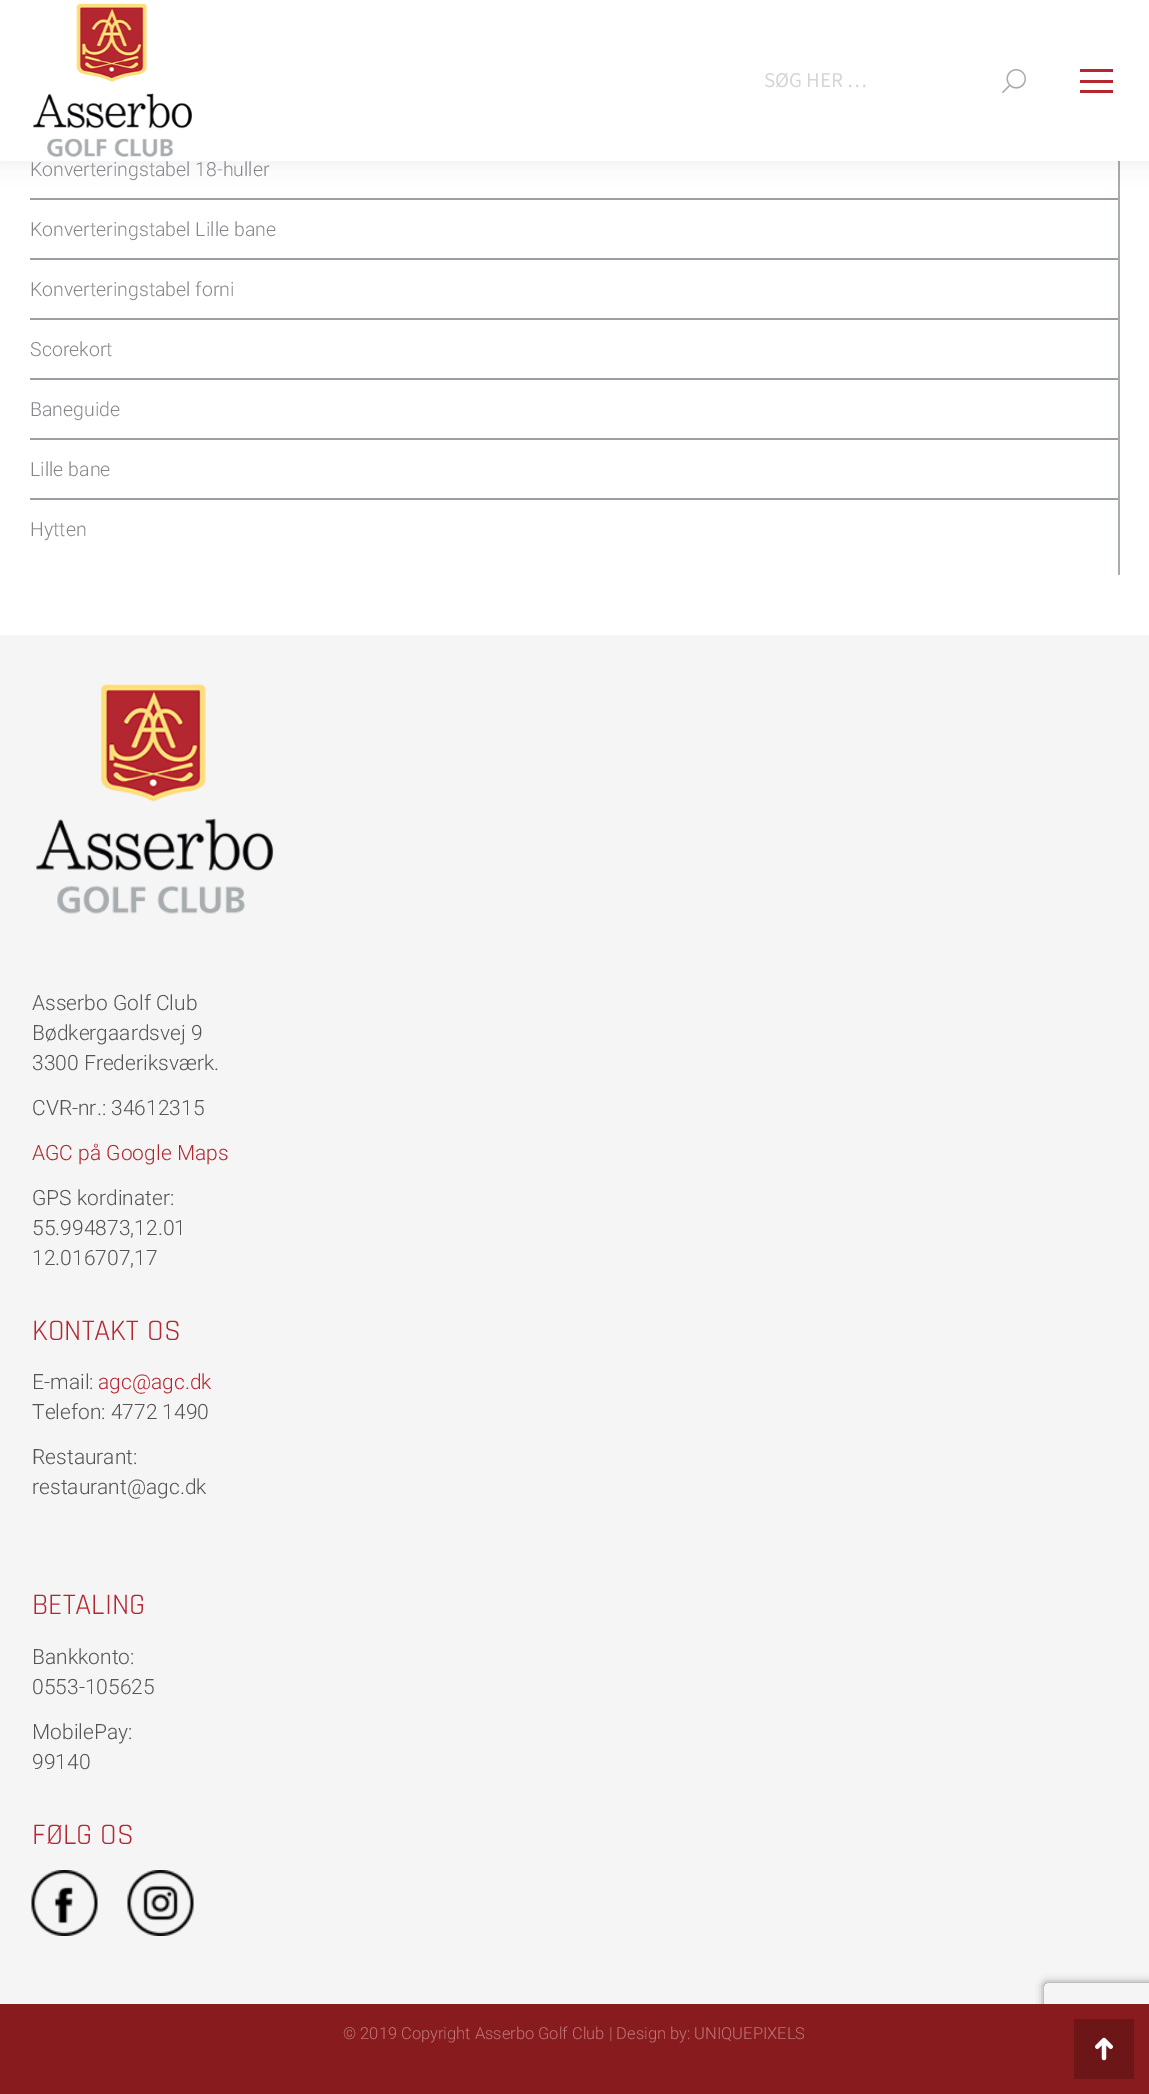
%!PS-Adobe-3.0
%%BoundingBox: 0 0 1149 2094
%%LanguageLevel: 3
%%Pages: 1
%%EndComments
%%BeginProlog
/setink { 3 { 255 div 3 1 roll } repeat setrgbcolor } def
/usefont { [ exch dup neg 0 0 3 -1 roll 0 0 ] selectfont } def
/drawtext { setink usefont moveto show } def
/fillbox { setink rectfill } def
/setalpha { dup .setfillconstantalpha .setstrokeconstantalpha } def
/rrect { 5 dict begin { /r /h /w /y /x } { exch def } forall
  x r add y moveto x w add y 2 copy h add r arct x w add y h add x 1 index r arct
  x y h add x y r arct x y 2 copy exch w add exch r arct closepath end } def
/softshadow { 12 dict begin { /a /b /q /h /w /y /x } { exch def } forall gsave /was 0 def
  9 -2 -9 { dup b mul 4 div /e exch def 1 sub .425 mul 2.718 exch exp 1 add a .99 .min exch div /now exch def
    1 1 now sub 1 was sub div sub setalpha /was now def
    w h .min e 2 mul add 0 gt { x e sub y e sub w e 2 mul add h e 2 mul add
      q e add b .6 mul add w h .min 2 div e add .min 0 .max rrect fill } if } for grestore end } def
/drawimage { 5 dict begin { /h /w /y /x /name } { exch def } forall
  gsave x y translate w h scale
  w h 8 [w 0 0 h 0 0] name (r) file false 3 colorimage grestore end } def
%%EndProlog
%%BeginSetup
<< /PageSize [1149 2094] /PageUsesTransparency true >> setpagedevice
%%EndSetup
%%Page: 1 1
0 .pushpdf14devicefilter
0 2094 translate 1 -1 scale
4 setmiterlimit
0 0 1149 2094 255 255 255 fillbox
1118 161 2 414 167 172 175 fillbox
0 0 0 setink
-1 -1 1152 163 0 11 0.07 softshadow
0 0 1149 161 255 255 255 fillbox
(assets/img1.rgb) 33 3 159 154 drawimage
(SØG HER …) 764 87 /Mada-Regular 21 213 213 213 drawtext
(assets/img2.rgb) 1002 69 24 24 drawimage
1080 69 33 3 181 39 48 fillbox
1080 80 33 3 181 39 48 fillbox
1080 90 33 3 181 39 48 fillbox
(Konverteringstabel 18-huller) 30 176 /Roboto-Light 19.5 133 134 140 drawtext
30 198 1088 2 157 158 163 fillbox
(Konverteringstabel Lille bane) 30 236 /Roboto-Light 19.5 133 134 140 drawtext
30 258 1088 2 157 158 163 fillbox
(Konverteringstabel forni) 30 296 /Roboto-Light 19.5 133 134 140 drawtext
30 318 1088 2 157 158 163 fillbox
(Scorekort) 30 356 /Roboto-Light 19.5 133 134 140 drawtext
30 378 1088 2 157 158 163 fillbox
(Baneguide) 30 416 /Roboto-Light 19.5 133 134 140 drawtext
30 438 1088 2 157 158 163 fillbox
(Lille bane) 30 476 /Roboto-Light 19.5 133 134 140 drawtext
30 498 1088 2 157 158 163 fillbox
(Hytten) 30 536 /Roboto-Light 19.5 133 134 140 drawtext
0 635 1149 1369 245 245 245 fillbox
(assets/img3.rgb) 36 684 238 230 drawimage
(Asserbo Golf Club) 32 1010 /Roboto-Light 21 84 84 84 drawtext
(Bødkergaardsvej 9) 32 1040 /Roboto-Light 21 84 84 84 drawtext
(3300 Frederiksværk.) 32 1070 /Roboto-Light 21 84 84 84 drawtext
(CVR-nr.: 34612315) 32 1115 /Roboto-Light 21 84 84 84 drawtext
(AGC på Google Maps) 32 1160 /Roboto-Light 21 181 39 48 drawtext
(GPS kordinater:) 32 1205 /Roboto-Light 21 84 84 84 drawtext
(55.994873,12.01) 32 1235 /Roboto-Light 21 84 84 84 drawtext
(12.016707,17) 32 1265 /Roboto-Light 21 84 84 84 drawtext
(KONTAKT OS) 32 1340 /Rajdhani-Regular 30 181 39 48 drawtext
(E-mail:) 32 1389 /Roboto-Light 21 84 84 84 drawtext
(agc@agc.dk) 98 1389 /Roboto-Light 21 181 39 48 drawtext
(Telefon: 4772 1490) 32 1419 /Roboto-Light 21 84 84 84 drawtext
(Restaurant:) 32 1464 /Roboto-Light 21 84 84 84 drawtext
(restaurant@agc.dk) 32 1494 /Roboto-Light 21 84 84 84 drawtext
(BETALING) 32 1614 /Rajdhani-Regular 30 181 39 48 drawtext
(Bankkonto:) 32 1664 /Roboto-Light 21 84 84 84 drawtext
(0553-105625) 32 1694 /Roboto-Light 21 84 84 84 drawtext
(MobilePay:) 32 1739 /Roboto-Light 21 84 84 84 drawtext
(99140) 32 1769 /Roboto-Light 21 84 84 84 drawtext
(FØLG OS) 32 1844 /Rajdhani-Regular 30 181 39 48 drawtext
(assets/img4.rgb) 31 1870 67 66 drawimage
(assets/img5.rgb) 127 1870 67 66 drawimage
gsave
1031 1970 moveto 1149 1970 lineto 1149 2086 lineto 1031 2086 lineto closepath 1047 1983 moveto 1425 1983 lineto 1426.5 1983 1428 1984.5 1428 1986 curveto 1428 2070 lineto 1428 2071.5 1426.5 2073 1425 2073 curveto 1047 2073 lineto 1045.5 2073 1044 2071.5 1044 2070 curveto 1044 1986 lineto 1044 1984.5 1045.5 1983 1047 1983 curveto closepath eoclip newpath
128 128 128 setink
1044 1983 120 90 3 4 1 softshadow
grestore
0 2004 1149 90 135 27 30 fillbox
(© 2019 Copyright Asserbo Golf Club | Design by: UNIQUEPIXELS) 343 2039 /Roboto-Light 16.5 191 118 120 drawtext
108 22 24 setink
1074 2019 60 60 1.5 rrect fill
(assets/img6.rgb) 1095 2037 18 24 drawimage
.poppdf14devicefilter showpage
%%EOF
